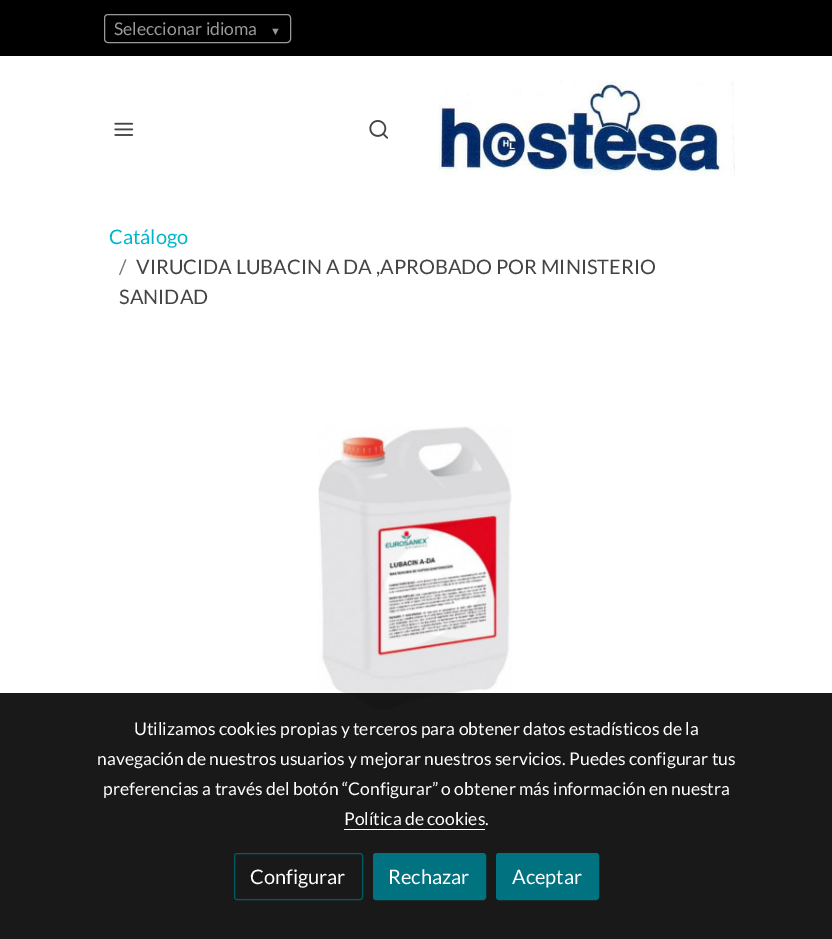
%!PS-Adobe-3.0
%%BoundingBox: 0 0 832 939
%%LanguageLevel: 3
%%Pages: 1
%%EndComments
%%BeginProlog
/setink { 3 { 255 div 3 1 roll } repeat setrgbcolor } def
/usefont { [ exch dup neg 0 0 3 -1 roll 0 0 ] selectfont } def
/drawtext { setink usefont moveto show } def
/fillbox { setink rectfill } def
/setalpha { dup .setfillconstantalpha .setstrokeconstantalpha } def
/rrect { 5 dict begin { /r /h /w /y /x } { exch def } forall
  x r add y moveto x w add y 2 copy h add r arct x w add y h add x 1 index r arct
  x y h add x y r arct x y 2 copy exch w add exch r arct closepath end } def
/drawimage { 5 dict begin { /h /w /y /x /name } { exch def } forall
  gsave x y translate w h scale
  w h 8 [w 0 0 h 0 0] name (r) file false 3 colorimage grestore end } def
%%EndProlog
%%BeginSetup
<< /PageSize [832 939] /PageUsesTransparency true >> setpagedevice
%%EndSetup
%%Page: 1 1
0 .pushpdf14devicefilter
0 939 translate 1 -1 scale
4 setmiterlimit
0 0 832 939 255 255 255 fillbox
0 0 832 56 0 0 0 fillbox
153 153 153 setink
104.5 14.5 186 28 3.5 rrect stroke
(Seleccionar idioma) 114 35 /Lato-Regular 17.5 153 153 153 drawtext
(▼) 270 35 /LiberationSans-Regular 11 153 153 153 drawtext
(assets/img1.rgb) 114 122 20 14 drawimage
(assets/img2.rgb) 369 120 20 19 drawimage
(assets/img3.rgb) 438 81 297 95 drawimage
(Catálogo) 109 244 /Lato-Regular 20 0 182 204 drawtext
(/) 119 274 /Lato-Regular 20 108 117 125 drawtext
(VIRUCIDA LUBACIN A DA ,APROBADO POR MINISTERIO) 136 274 /Lato-Regular 20 68 68 68 drawtext
(SANIDAD) 119 304 /Lato-Regular 20 68 68 68 drawtext
(assets/img4.rgb) 318 426 194 285 drawimage
0.9 setalpha
0 693 832 246 0 0 0 fillbox
1 setalpha
(Utilizamos cookies propias y terceros para obtener datos estadísticos de la) 134 735 /Lato-Regular 17.5 255 255 255 drawtext
(navegación de nuestros usuarios y mejorar nuestros servicios. Puedes configurar tus) 97 765 /Lato-Regular 17.5 255 255 255 drawtext
(preferencias a través del botón “Configurar” o obtener más información en nuestra) 103 795 /Lato-Regular 17.5 255 255 255 drawtext
(Política de cookies.) 344 825 /Lato-Regular 17.5 255 255 255 drawtext
344 829 141 1 255 255 255 fillbox
0 91 102 setink
234.5 853.5 128 46 2.5 rrect stroke
(Configurar) 250 884 /Lato-Regular 20 255 255 255 drawtext
0 114 128 setink
373.5 853.5 112 46 2.5 rrect gsave fill grestore
stroke
(Rechazar) 388 884 /Lato-Regular 20 255 255 255 drawtext
0 114 128 setink
496.5 853.5 102 46 2.5 rrect gsave fill grestore
stroke
(Aceptar) 512 884 /Lato-Regular 20 255 255 255 drawtext
.poppdf14devicefilter showpage
%%EOF
